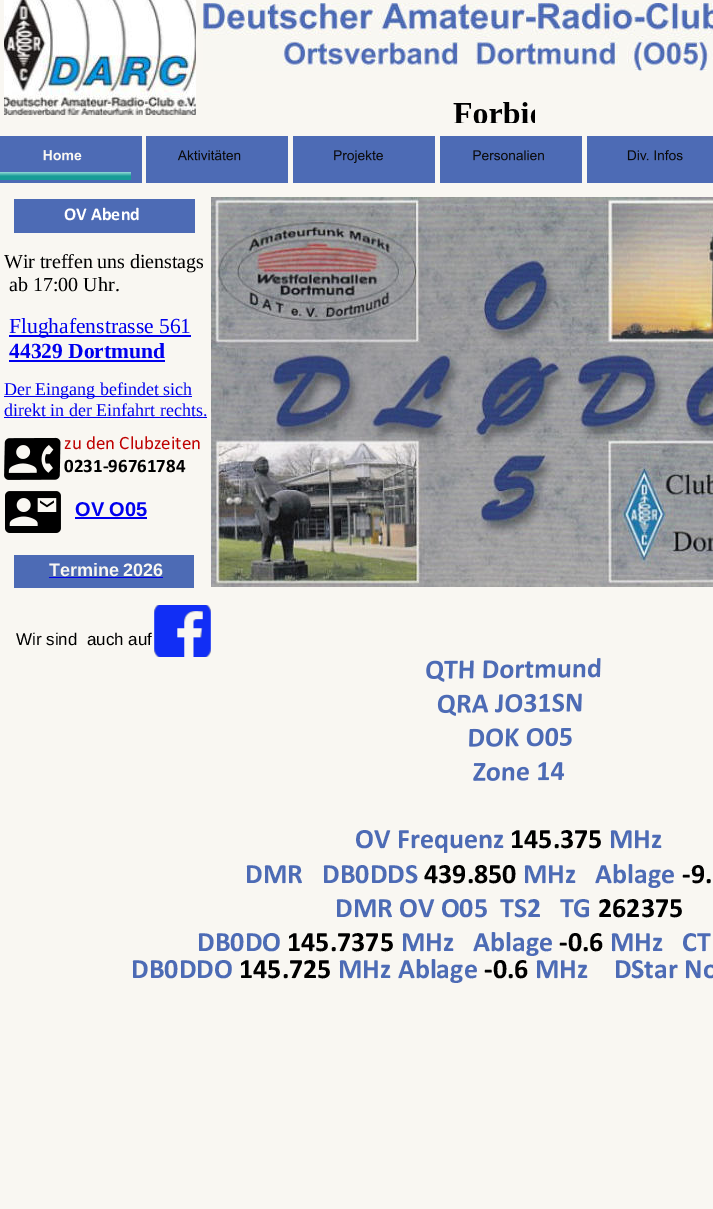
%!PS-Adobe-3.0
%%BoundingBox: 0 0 713 1209
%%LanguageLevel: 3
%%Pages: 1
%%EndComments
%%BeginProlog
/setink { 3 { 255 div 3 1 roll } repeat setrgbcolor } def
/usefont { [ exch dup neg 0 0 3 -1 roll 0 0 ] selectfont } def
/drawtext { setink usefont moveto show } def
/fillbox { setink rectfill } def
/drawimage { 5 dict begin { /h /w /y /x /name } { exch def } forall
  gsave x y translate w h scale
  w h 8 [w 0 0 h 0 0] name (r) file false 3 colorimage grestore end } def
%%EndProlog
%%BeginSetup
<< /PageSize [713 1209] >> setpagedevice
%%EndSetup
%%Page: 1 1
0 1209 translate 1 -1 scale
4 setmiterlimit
0 0 713 1209 249 247 242 fillbox
(assets/img1.rgb) 0 136 142 47 drawimage
(assets/img2.rgb) 0 150 131 30 drawimage
(assets/img3.rgb) 146 136 142 47 drawimage
(assets/img4.rgb) 293 136 142 47 drawimage
(assets/img5.rgb) 440 136 142 47 drawimage
(assets/img6.rgb) 587 136 126 47 drawimage
(assets/img7.rgb) 4 0 192 115 drawimage
(assets/img8.rgb) 203 3 510 68 drawimage
(assets/img9.rgb) 453 102 82 21 drawimage
14 199 181 34 77 107 181 fillbox
(assets/img10.rgb) 211 197 502 390 drawimage
(OV Abend) 64 220 /Calibri-Bold 18 255 255 255 drawtext
/LiberationSerif-Regular 20 usefont
0 0 0 setink
4 268 moveto -0.5 0 32 (Wir treffen uns dienstags) widthshow
(ab 17:00 Uhr.) 9 291 /LiberationSerif-Regular 20 0 0 0 drawtext
9 335 182 2 0 0 238 fillbox
(Flughafenstrasse 561) 9 333 /LiberationSerif-Regular 21.5 0 0 238 drawtext
(44329 Dortmund) 9 358 /LiberationSerif-Bold 21.5 0 0 238 drawtext
9 360 156 2 0 0 238 fillbox
4 396 188 1 0 0 238 fillbox
(Der Eingang befindet sich) 4 395 /LiberationSerif-Regular 18 0 0 238 drawtext
(direkt in der Einfahrt rechts.) 4 416 /LiberationSerif-Regular 18 0 0 238 drawtext
4 417 203 1 0 0 238 fillbox
(assets/img11.rgb) 4 437 57 43 drawimage
(zu den Clubzeiten) 64 449 /Calibri-Regular 19 191 0 0 drawtext
(0231-96761784) 64 472 /Calibri-Bold 19 0 0 0 drawtext
(assets/img12.rgb) 5 491 56 42 drawimage
(OV O05) 75 516 /LiberationSans-Bold 20 0 0 238 drawtext
75 517 72 2 0 0 238 fillbox
14 555 180 33 77 107 181 fillbox
/LiberationSans-Bold 18 usefont
249 247 242 setink
49 576 moveto -1 0 32 (Termine 2026) widthshow
49 577 114 1 0 0 238 fillbox
(Wir sind  auch auf) 16 645 /LiberationSans-Regular 17 0 0 0 drawtext
(assets/img13.rgb) 154 605 57 52 drawimage
(assets/img14.rgb) 426 658 175 123 drawimage
(OV Frequenz) 355 848 /Calibri-Bold 28 77 107 181 drawtext
(145.375) 510 848 /Calibri-Bold 28 0 0 0 drawtext
(MHz) 609 848 /Calibri-Bold 28 77 107 181 drawtext
(DMR) 245 883 /Calibri-Bold 28 77 107 181 drawtext
(DB0DDS) 322 883 /Calibri-Bold 28 77 107 181 drawtext
(439.850) 424 883 /Calibri-Bold 28 0 0 0 drawtext
(MHz   Ablage) 523 883 /Calibri-Bold 28 77 107 181 drawtext
(-9.) 682 883 /Calibri-Bold 28 0 0 0 drawtext
77 107 181 setink
335 917 moveto -0.25 0 32 (DMR OV O05  TS2   TG) widthshow
(262375) 598 917 /Calibri-Bold 28 0 0 0 drawtext
(DB0DO) 197 951 /Calibri-Bold 28 77 107 181 drawtext
(145.7375) 287 951 /Calibri-Bold 28 0 0 0 drawtext
(MHz   Ablage) 401 951 /Calibri-Bold 28 77 107 181 drawtext
(-0.6) 559 951 /Calibri-Bold 28 0 0 0 drawtext
(MHz   CT) 610 951 /Calibri-Bold 28 77 107 181 drawtext
(DB0DDO) 131 978 /Calibri-Bold 28 77 107 181 drawtext
(145.725) 239 978 /Calibri-Bold 28 0 0 0 drawtext
(MHz Ablage) 338 978 /Calibri-Bold 28 77 107 181 drawtext
(-0.6) 484 978 /Calibri-Bold 28 0 0 0 drawtext
(MHz    DStar No) 535 978 /Calibri-Bold 28 77 107 181 drawtext
showpage
%%EOF
